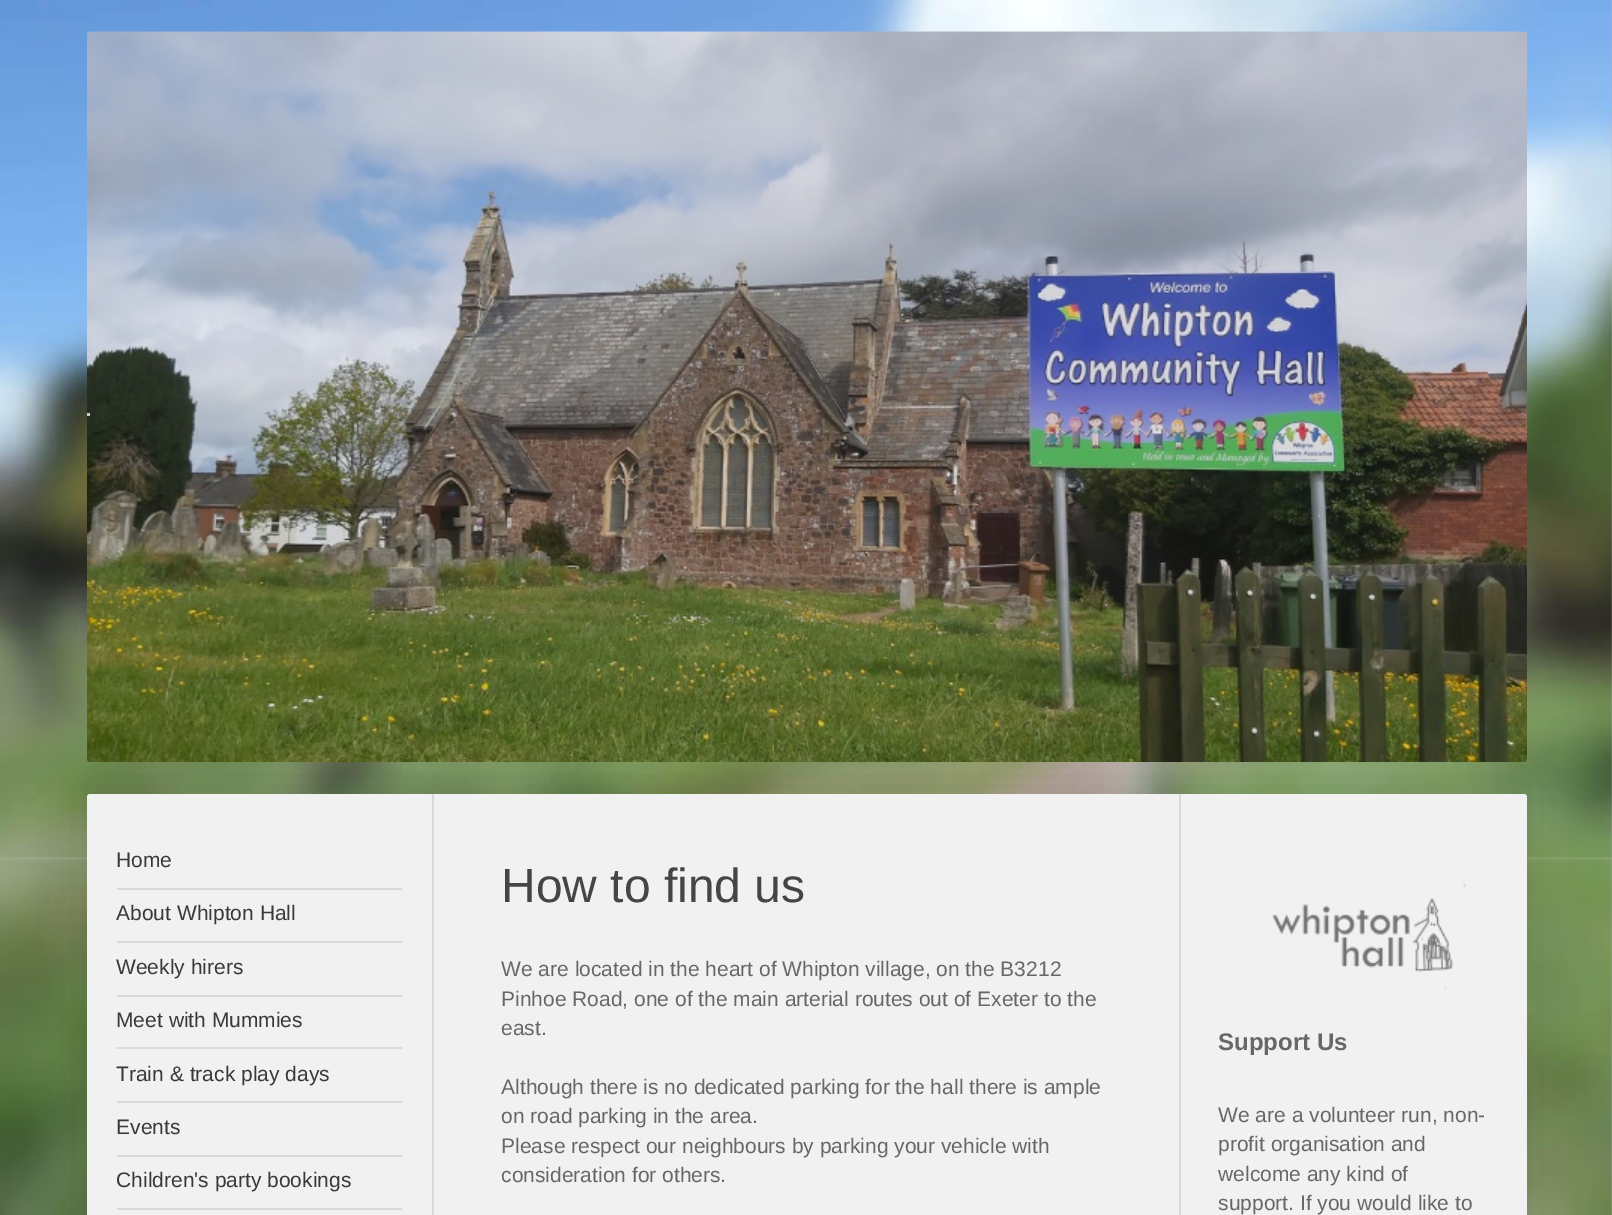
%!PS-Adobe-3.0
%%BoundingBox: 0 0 1612 1215
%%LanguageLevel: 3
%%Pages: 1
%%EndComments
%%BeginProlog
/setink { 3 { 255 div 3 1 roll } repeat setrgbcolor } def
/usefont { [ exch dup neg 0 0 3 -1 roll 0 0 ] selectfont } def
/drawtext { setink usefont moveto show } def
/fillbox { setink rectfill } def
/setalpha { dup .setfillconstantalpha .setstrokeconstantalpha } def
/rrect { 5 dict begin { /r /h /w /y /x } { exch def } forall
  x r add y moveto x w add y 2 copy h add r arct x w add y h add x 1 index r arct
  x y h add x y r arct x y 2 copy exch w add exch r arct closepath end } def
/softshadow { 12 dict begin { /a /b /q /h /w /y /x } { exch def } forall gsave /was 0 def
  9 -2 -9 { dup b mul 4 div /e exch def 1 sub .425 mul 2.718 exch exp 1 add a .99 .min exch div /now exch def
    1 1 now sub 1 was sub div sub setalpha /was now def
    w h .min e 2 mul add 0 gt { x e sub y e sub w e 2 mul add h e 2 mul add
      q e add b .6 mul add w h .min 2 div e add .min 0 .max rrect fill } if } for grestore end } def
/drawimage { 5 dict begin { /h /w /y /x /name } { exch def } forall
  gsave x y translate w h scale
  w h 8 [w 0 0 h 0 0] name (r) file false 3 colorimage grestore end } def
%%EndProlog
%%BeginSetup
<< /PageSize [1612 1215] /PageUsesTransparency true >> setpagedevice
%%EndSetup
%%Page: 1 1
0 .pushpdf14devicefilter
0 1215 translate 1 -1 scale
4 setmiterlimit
0 0 1612 1215 255 255 255 fillbox
(assets/img1.rgb) 0 0 1612 1215 drawimage
gsave
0 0 moveto 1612 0 lineto 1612 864 lineto 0 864 lineto closepath 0 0 moveto 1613 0 lineto 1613 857 lineto 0 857 lineto closepath eoclip newpath
0 3 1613 857 0 1 0.1 softshadow
grestore
(assets/img2.rgb) 87 31 1440 731 drawimage
0 0 0 setink
87 779 1440 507 3 22.5 0.1 softshadow
(assets/img3.rgb) 87 31 1440 731 drawimage
87 413 3 3 204 204 204 fillbox
241 241 241 setink
87 794 1440 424 3 rrect fill
117 888 285 2 217 217 217 fillbox
(Home) 116 867 /LiberationSans-Regular 21 57 57 57 drawtext
117 941 285 2 217 217 217 fillbox
(About Whipton Hall) 116 920 /LiberationSans-Regular 21 57 57 57 drawtext
117 995 285 2 217 217 217 fillbox
(Weekly hirers) 116 974 /LiberationSans-Regular 21 57 57 57 drawtext
117 1047 285 2 217 217 217 fillbox
(Meet with Mummies) 116 1027 /LiberationSans-Regular 21 57 57 57 drawtext
117 1101 285 2 217 217 217 fillbox
(Train & track play days) 116 1081 /LiberationSans-Regular 21 57 57 57 drawtext
117 1155 285 2 217 217 217 fillbox
(Events) 116 1134 /LiberationSans-Regular 21 57 57 57 drawtext
117 1208 285 2 217 217 217 fillbox
(Children's party bookings) 116 1187 /LiberationSans-Regular 21 57 57 57 drawtext
1179 794 2 421 216 216 216 fillbox
432 794 2 421 216 216 216 fillbox
(How to find us) 501 902 /LiberationSans-Regular 48 69 69 69 drawtext
(We are located in the heart of Whipton village, on the B3212) 501 976 /LiberationSans-Regular 21 103 103 103 drawtext
(Pinhoe Road, one of the main arterial routes out of Exeter to the) 501 1006 /LiberationSans-Regular 21 103 103 103 drawtext
(east.) 501 1035 /LiberationSans-Regular 21 103 103 103 drawtext
(Although there is no dedicated parking for the hall there is ample) 501 1094 /LiberationSans-Regular 21 103 103 103 drawtext
(on road parking in the area.) 501 1123 /LiberationSans-Regular 21 103 103 103 drawtext
(Please respect our neighbours by parking your vehicle with) 501 1153 /LiberationSans-Regular 21 103 103 103 drawtext
(consideration for others.) 501 1182 /LiberationSans-Regular 21 103 103 103 drawtext
(assets/img4.rgb) 1272 883 194 107 drawimage
(Support Us) 1218 1050 /LiberationSans-Bold 24 103 103 103 drawtext
(We are a volunteer run, non-) 1218 1122 /LiberationSans-Regular 21 103 103 103 drawtext
(profit organisation and) 1218 1151 /LiberationSans-Regular 21 103 103 103 drawtext
(welcome any kind of) 1218 1181 /LiberationSans-Regular 21 103 103 103 drawtext
(support. If you would like to) 1218 1210 /LiberationSans-Regular 21 103 103 103 drawtext
.poppdf14devicefilter showpage
%%EOF
